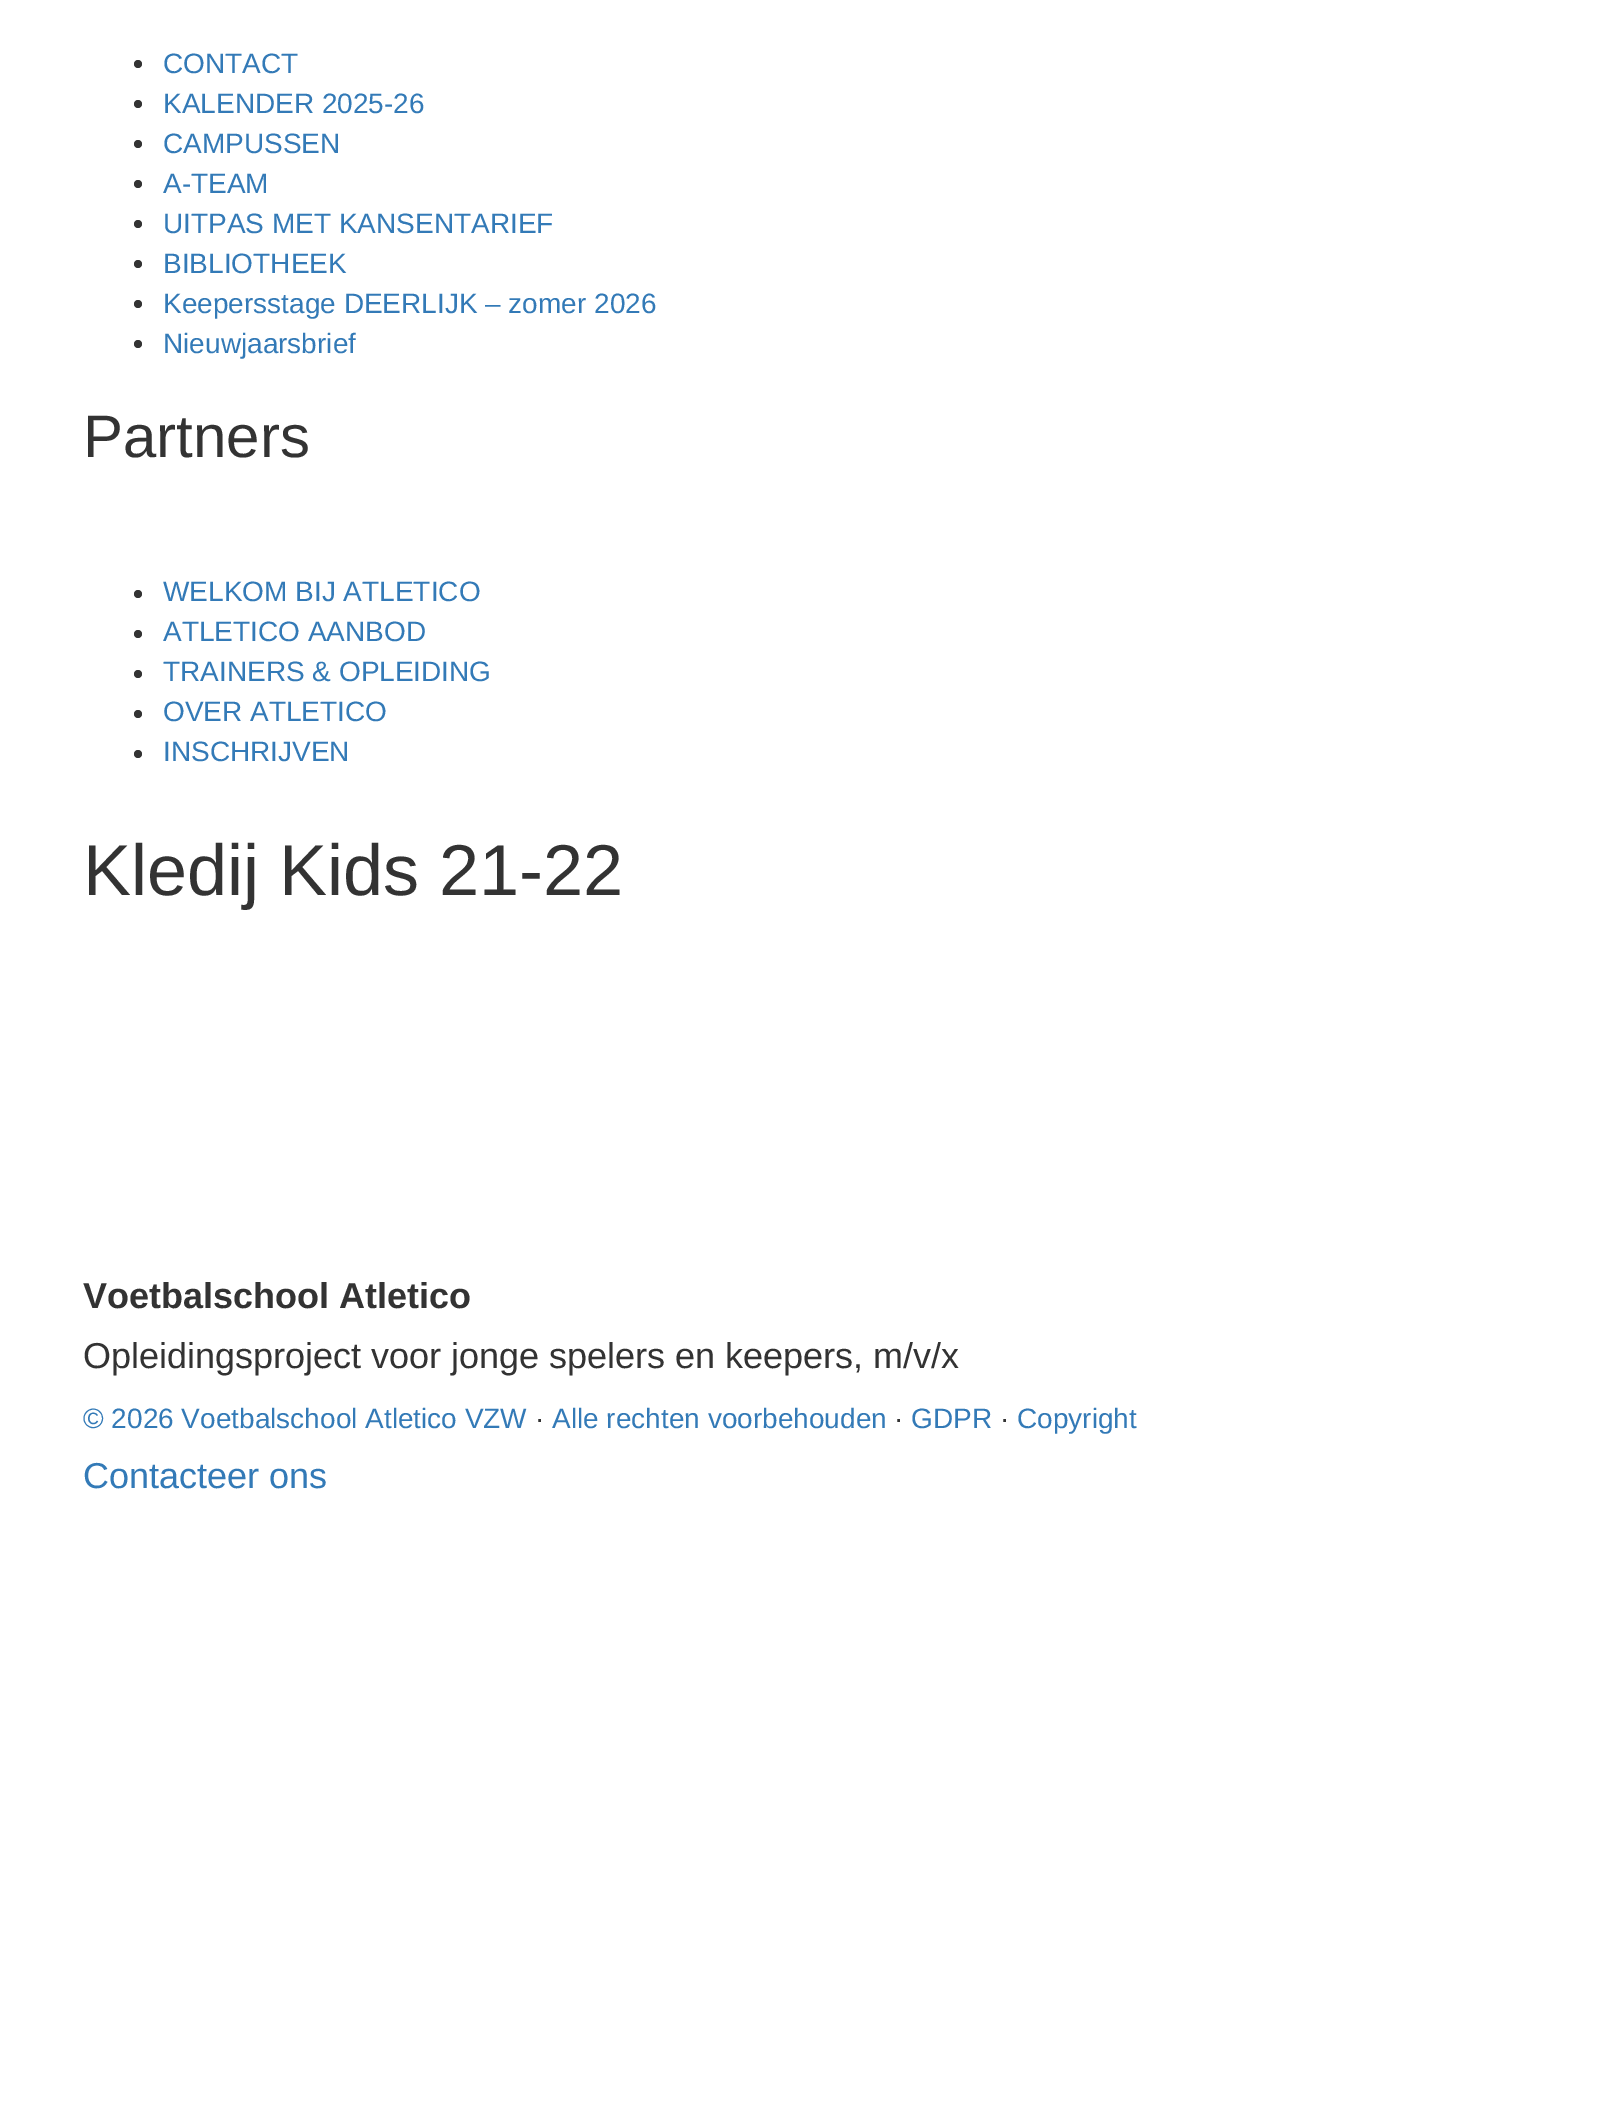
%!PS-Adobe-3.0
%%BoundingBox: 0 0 1606 2122
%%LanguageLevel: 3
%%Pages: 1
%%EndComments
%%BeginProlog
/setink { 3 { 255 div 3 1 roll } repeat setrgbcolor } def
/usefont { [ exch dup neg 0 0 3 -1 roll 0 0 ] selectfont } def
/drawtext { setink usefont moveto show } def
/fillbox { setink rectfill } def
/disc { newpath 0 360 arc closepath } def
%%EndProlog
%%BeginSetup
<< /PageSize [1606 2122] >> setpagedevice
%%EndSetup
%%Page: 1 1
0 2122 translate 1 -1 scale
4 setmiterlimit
0 0 1606 2122 255 255 255 fillbox
51 51 51 setink
138 64 4 disc fill
(CONTACT) 163 73 /LiberationSans-Regular 28 51 122 183 drawtext
51 51 51 setink
138 104 4 disc fill
(KALENDER 2025-26) 163 113 /LiberationSans-Regular 28 51 122 183 drawtext
51 51 51 setink
138 144 4 disc fill
(CAMPUSSEN) 163 153 /LiberationSans-Regular 28 51 122 183 drawtext
51 51 51 setink
138 184 4 disc fill
(A-TEAM) 163 193 /LiberationSans-Regular 28 51 122 183 drawtext
51 51 51 setink
138 224 4 disc fill
(UITPAS MET KANSENTARIEF) 163 233 /LiberationSans-Regular 28 51 122 183 drawtext
51 51 51 setink
138 264 4 disc fill
(BIBLIOTHEEK) 163 273 /LiberationSans-Regular 28 51 122 183 drawtext
51 51 51 setink
138 304 4 disc fill
(Keepersstage DEERLIJK – zomer 2026) 163 313 /LiberationSans-Regular 28 51 122 183 drawtext
51 51 51 setink
138 344 4 disc fill
(Nieuwjaarsbrief) 163 353 /LiberationSans-Regular 28 51 122 183 drawtext
(Partners) 83 457 /LiberationSans-Regular 60 51 51 51 drawtext
138 594 4 disc fill
(WELKOM BIJ ATLETICO) 163 601 /LiberationSans-Regular 28 51 122 183 drawtext
51 51 51 setink
138 634 4 disc fill
(ATLETICO AANBOD) 163 641 /LiberationSans-Regular 28 51 122 183 drawtext
51 51 51 setink
138 674 4 disc fill
(TRAINERS & OPLEIDING) 163 681 /LiberationSans-Regular 28 51 122 183 drawtext
51 51 51 setink
138 714 4 disc fill
(OVER ATLETICO) 163 721 /LiberationSans-Regular 28 51 122 183 drawtext
51 51 51 setink
138 754 4 disc fill
(INSCHRIJVEN) 163 761 /LiberationSans-Regular 28 51 122 183 drawtext
(Kledij Kids 21-22) 83 895 /LiberationSans-Regular 72 51 51 51 drawtext
(Voetbalschool Atletico) 83 1308 /LiberationSans-Bold 36 51 51 51 drawtext
(Opleidingsproject voor jonge spelers en keepers, m/v/x) 83 1368 /LiberationSans-Regular 36 51 51 51 drawtext
(© 2026 Voetbalschool Atletico VZW) 83 1428 /LiberationSans-Regular 28 51 122 183 drawtext
(·) 535 1428 /LiberationSans-Regular 28 51 51 51 drawtext
(Alle rechten voorbehouden) 552 1428 /LiberationSans-Regular 28 51 122 183 drawtext
(·) 894 1428 /LiberationSans-Regular 28 51 51 51 drawtext
(GDPR) 911 1428 /LiberationSans-Regular 28 51 122 183 drawtext
(·) 1000 1428 /LiberationSans-Regular 28 51 51 51 drawtext
(Copyright) 1017 1428 /LiberationSans-Regular 28 51 122 183 drawtext
(Contacteer ons) 83 1488 /LiberationSans-Regular 36 51 122 183 drawtext
showpage
%%EOF
